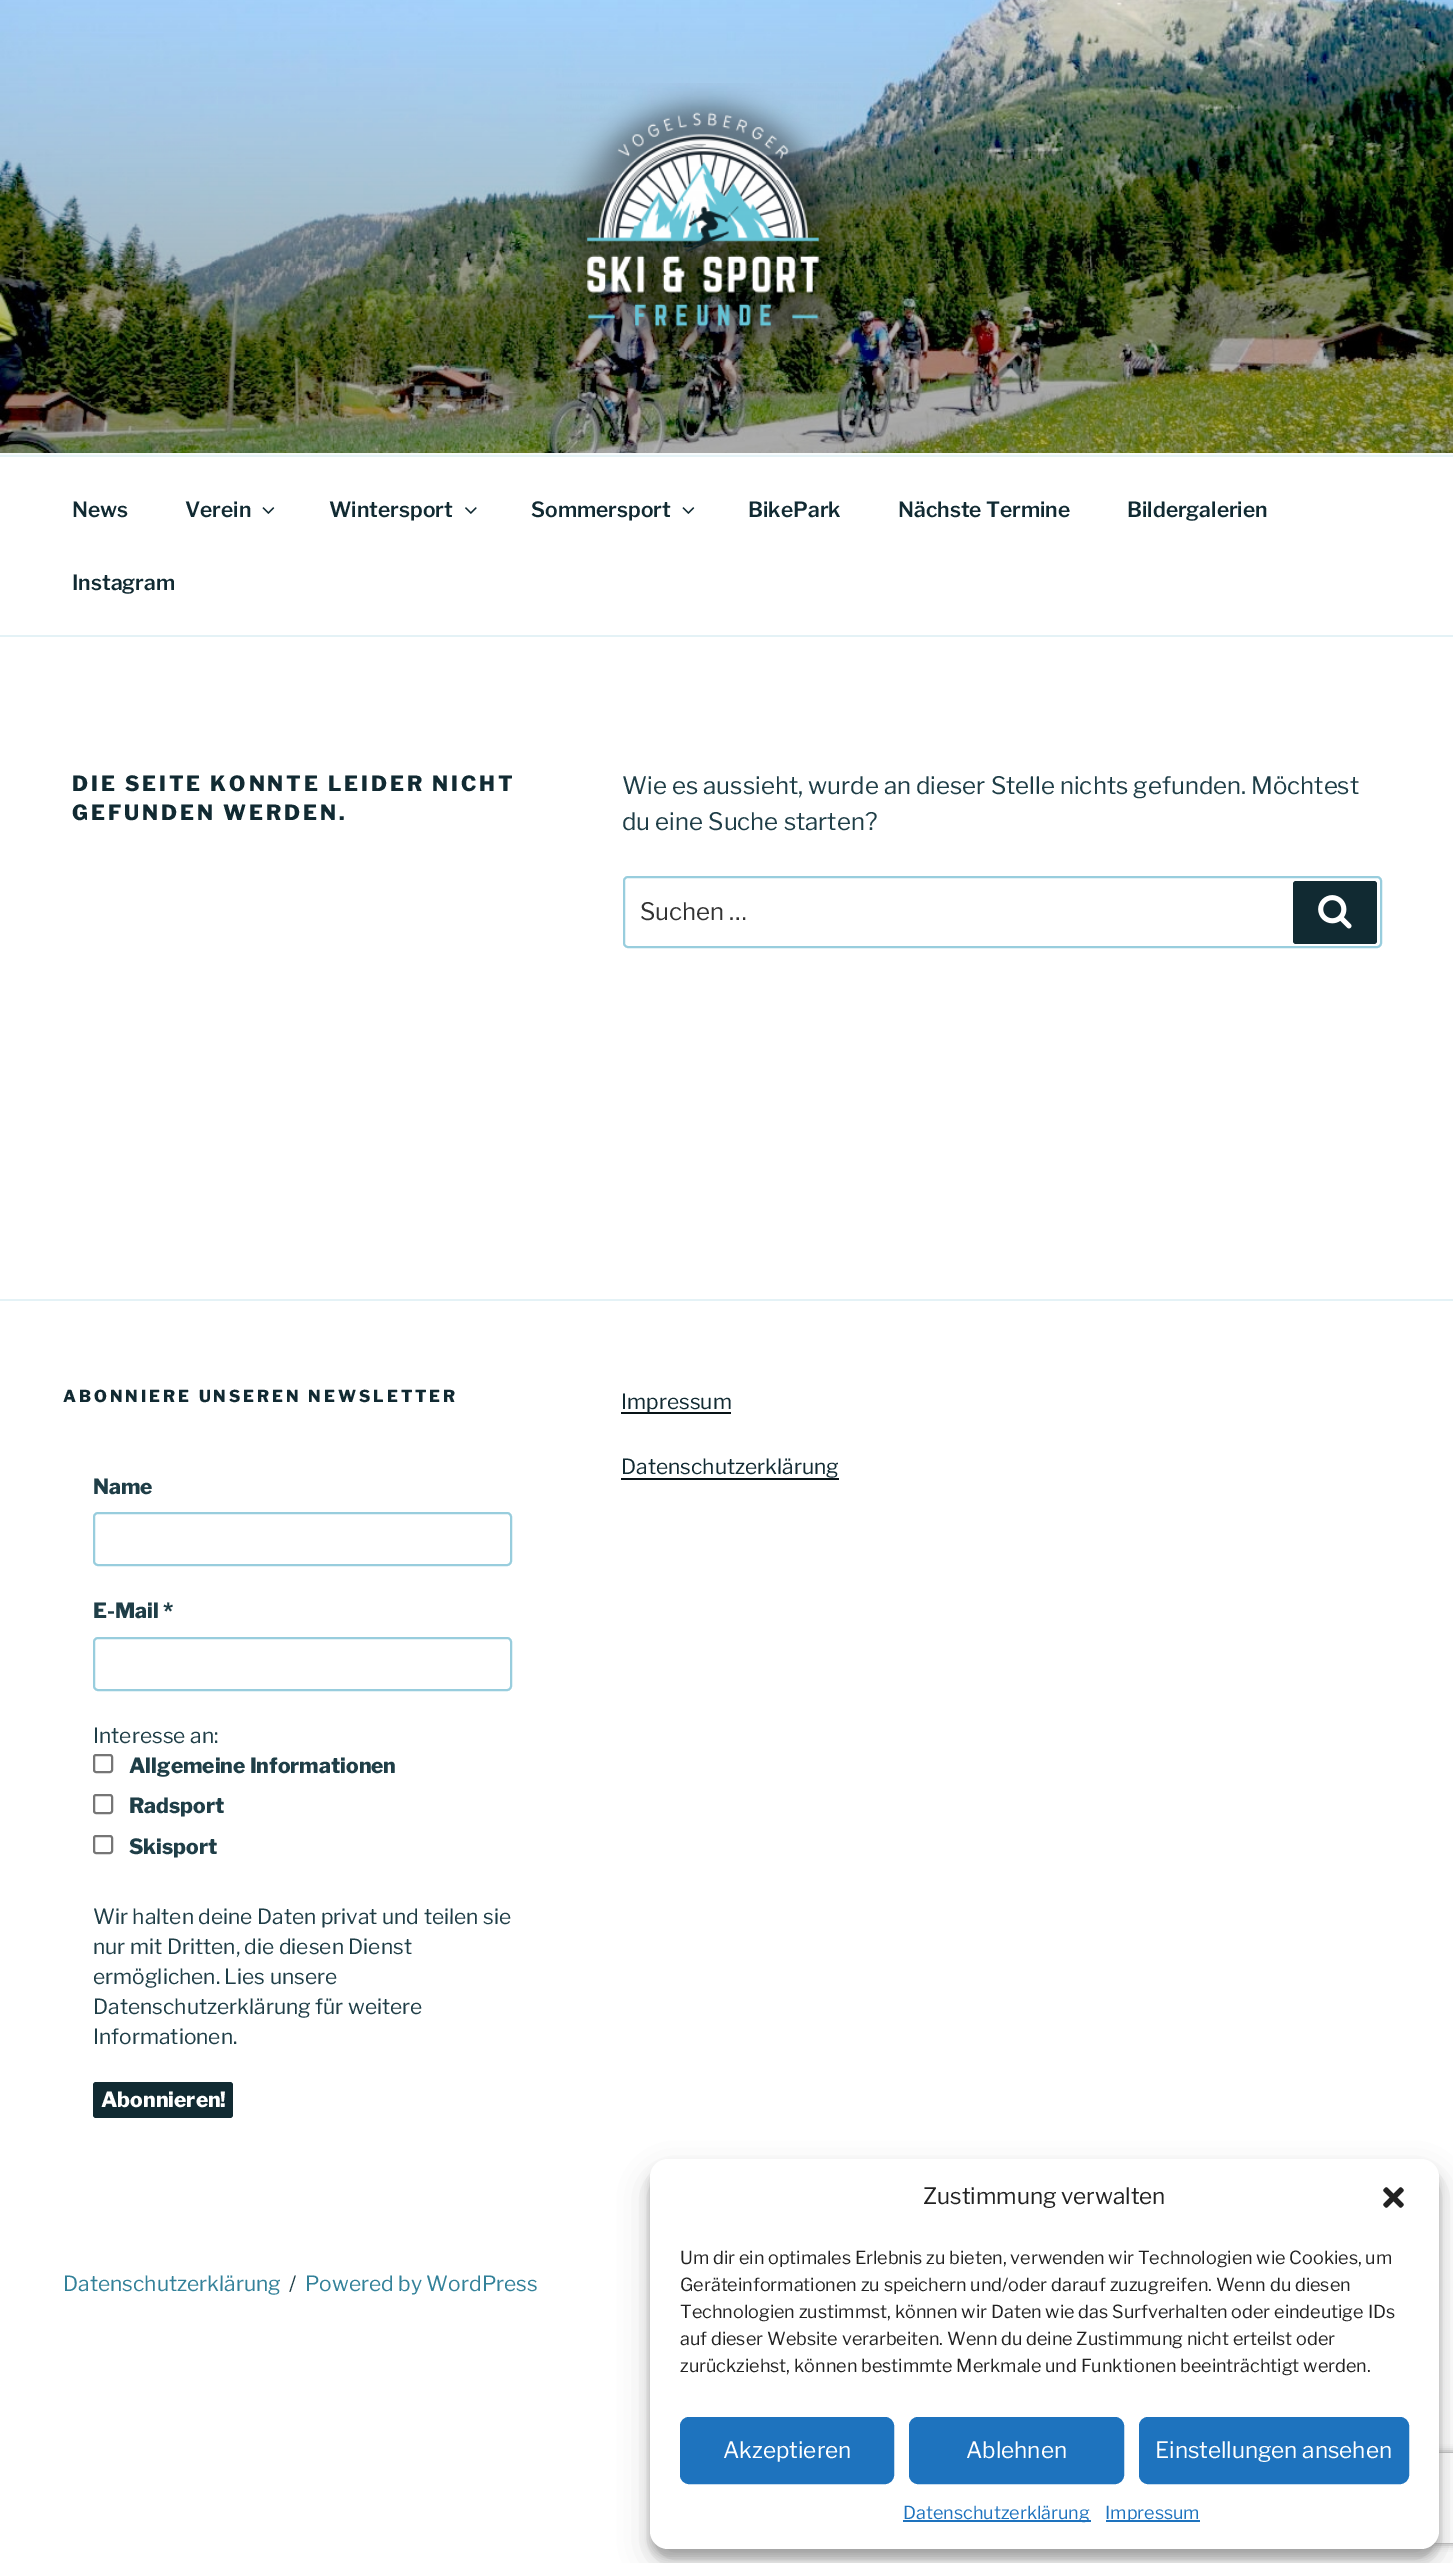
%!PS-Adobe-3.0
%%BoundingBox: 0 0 1453 2563
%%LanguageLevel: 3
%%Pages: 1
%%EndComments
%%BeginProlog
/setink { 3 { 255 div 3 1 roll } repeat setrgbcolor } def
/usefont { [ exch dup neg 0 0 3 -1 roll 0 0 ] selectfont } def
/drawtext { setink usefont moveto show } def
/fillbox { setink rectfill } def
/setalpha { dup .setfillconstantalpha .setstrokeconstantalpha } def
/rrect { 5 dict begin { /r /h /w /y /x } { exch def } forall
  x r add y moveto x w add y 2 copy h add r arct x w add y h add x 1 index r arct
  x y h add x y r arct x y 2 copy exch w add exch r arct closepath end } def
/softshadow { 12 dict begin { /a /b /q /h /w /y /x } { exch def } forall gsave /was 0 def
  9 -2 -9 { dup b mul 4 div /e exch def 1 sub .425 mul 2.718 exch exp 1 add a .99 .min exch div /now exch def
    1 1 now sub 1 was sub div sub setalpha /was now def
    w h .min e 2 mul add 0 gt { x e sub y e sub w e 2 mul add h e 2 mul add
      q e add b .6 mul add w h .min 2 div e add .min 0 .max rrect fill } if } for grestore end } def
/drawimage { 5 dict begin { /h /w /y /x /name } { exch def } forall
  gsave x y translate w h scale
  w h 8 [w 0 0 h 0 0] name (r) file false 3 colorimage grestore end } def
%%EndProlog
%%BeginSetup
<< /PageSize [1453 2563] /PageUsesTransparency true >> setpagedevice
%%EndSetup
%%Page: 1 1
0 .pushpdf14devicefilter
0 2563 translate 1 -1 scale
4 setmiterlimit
0 0 1453 2563 255 255 255 fillbox
0 453 1453 2 247 251 252 fillbox
(assets/img1.rgb) 0 0 1453 453 drawimage
(assets/img2.rgb) 556 83 295 279 drawimage
0 455 1453 2 228 242 246 fillbox
0 635 1453 2 228 242 246 fillbox
(News) 72 517 /LibreFranklin-SemiBold 21 17 42 50 drawtext
(Verein) 185 517 /LibreFranklin-SemiBold 21 17 42 50 drawtext
(assets/img3.rgb) 262 507 13 7 drawimage
(Wintersport) 329 517 /LibreFranklin-SemiBold 21 17 42 50 drawtext
(assets/img4.rgb) 465 507 12 7 drawimage
(Sommersport) 531 517 /LibreFranklin-SemiBold 21 17 42 50 drawtext
(assets/img3.rgb) 682 507 13 7 drawimage
(BikePark) 748 517 /LibreFranklin-SemiBold 21 17 42 50 drawtext
(Nächste Termine) 898 517 /LibreFranklin-SemiBold 21 17 42 50 drawtext
(Bildergalerien) 1127 517 /LibreFranklin-SemiBold 21 17 42 50 drawtext
(Instagram) 72 590 /LibreFranklin-SemiBold 21 17 42 50 drawtext
/LibreFranklin-ExtraBold 21 usefont
72 791 moveto 2.95 0 (DIE SEITE KONNTE LEIDER NICHT) ashow
72 820 moveto 2.95 0 (GEFUNDEN WERDEN.) ashow
(Wie es aussieht, wurde an dieser Stelle nichts gefunden. Möchtest) 622 794 /LibreFranklin-Regular 24 31 62 71 drawtext
(du eine Suche starten?) 622 830 /LibreFranklin-Regular 24 31 62 71 drawtext
152 205 221 setink
2 setlinewidth
624 877 757 70 4 rrect stroke
(Suchen …) 640 920 /LibreFranklin-Regular 24 51 51 51 drawtext
17 42 50 setink
1293 881 84 63 3 rrect fill
(assets/img5.rgb) 1318 895 34 34 drawimage
0 1299 1453 2 228 242 246 fillbox
/LibreFranklin-ExtraBold 16.5 usefont
17 42 50 setink
63 1402 moveto 3 0 (ABONNIERE UNSEREN NEWSLETTER) ashow
(Name) 93 1494 /LibreFranklin-ExtraBold 21 31 62 71 drawtext
152 205 221 setink
94 1513 417 52 4 rrect stroke
(E-Mail *) 93 1618 /LibreFranklin-ExtraBold 21 31 62 71 drawtext
152 205 221 setink
94 1638 417 52 4 rrect stroke
(Interesse an:) 93 1743 /LibreFranklin-Regular 21 31 62 71 drawtext
118 118 118 setink
94 1755 18 17 2 rrect stroke
(Allgemeine Informationen) 129 1773 /LibreFranklin-ExtraBold 21 31 62 71 drawtext
118 118 118 setink
94 1795 18 18 2 rrect stroke
(Radsport) 129 1813 /LibreFranklin-ExtraBold 21 31 62 71 drawtext
118 118 118 setink
94 1836 18 17 2 rrect stroke
(Skisport) 129 1854 /LibreFranklin-ExtraBold 21 31 62 71 drawtext
(Wir halten deine Daten privat und teilen sie) 93 1924 /LibreFranklin-Regular 21 31 62 71 drawtext
(nur mit Dritten, die diesen Dienst) 93 1954 /LibreFranklin-Regular 21 31 62 71 drawtext
(ermöglichen. Lies unsere) 93 1984 /LibreFranklin-Regular 21 31 62 71 drawtext
(Datenschutzerklärung für weitere) 93 2014 /LibreFranklin-Regular 21 31 62 71 drawtext
(Informationen.) 93 2044 /LibreFranklin-Regular 21 31 62 71 drawtext
17 42 50 setink
93 2082 140 36 3 rrect fill
(Abonnieren!) 101 2107 /LibreFranklin-ExtraBold 21 255 255 255 drawtext
621 1412 110 2 8 19 23 fillbox
(Impressum) 621 1409 /LibreFranklin-Regular 21 17 42 50 drawtext
(Datenschutzerklärung) 621 1474 /LibreFranklin-Regular 21 17 42 50 drawtext
621 1478 218 2 8 19 23 fillbox
(Datenschutzerklärung) 63 2291 /LibreFranklin-Regular 21 51 129 153 drawtext
(/) 289 2291 /LibreFranklin-Regular 21 31 62 71 drawtext
(Powered by WordPress) 305 2291 /LibreFranklin-Regular 21 51 129 153 drawtext
0 0 0 setink
650 2168 789 390 18 4.5 0.23 softshadow
650 2174 789 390 18 15 0.19 softshadow
gsave
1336 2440 moveto 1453 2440 lineto 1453 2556 lineto 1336 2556 lineto closepath 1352 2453 moveto 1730 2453 lineto 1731.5 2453 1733 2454.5 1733 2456 curveto 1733 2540 lineto 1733 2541.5 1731.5 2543 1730 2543 curveto 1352 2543 lineto 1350.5 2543 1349 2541.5 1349 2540 curveto 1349 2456 lineto 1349 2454.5 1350.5 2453 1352 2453 curveto closepath eoclip newpath
128 128 128 setink
1349 2453 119 90 3 4 1 softshadow
grestore
255 255 255 setink
650 2159 789 390 18 rrect fill
(Zustimmung verwalten) 923 2204 /LibreFranklin-Regular 22.5 34 34 34 drawtext
(assets/img6.rgb) 1383 2187 21 21 drawimage
(Um dir ein optimales Erlebnis zu bieten, verwenden wir Technologien wie Cookies, um) 680 2264 /LibreFranklin-Regular 18 34 34 34 drawtext
(Geräteinformationen zu speichern und/oder darauf zuzugreifen. Wenn du diesen) 680 2291 /LibreFranklin-Regular 18 34 34 34 drawtext
(Technologien zustimmst, können wir Daten wie das Surfverhalten oder eindeutige IDs) 680 2318 /LibreFranklin-Regular 18 34 34 34 drawtext
(auf dieser Website verarbeiten. Wenn du deine Zustimmung nicht erteilst oder) 680 2345 /LibreFranklin-Regular 18 34 34 34 drawtext
(zurückziehst, können bestimmte Merkmale und Funktionen beeinträchtigt werden.) 680 2372 /LibreFranklin-Regular 18 34 34 34 drawtext
30 115 190 setink
681 2418 212 65 8 rrect gsave fill grestore
stroke
(Akzeptieren) 723 2458 /LibreFranklin-Regular 22.5 255 255 255 drawtext
30 115 190 setink
910 2418 213 65 8 rrect gsave fill grestore
stroke
(Ablehnen) 966 2458 /LibreFranklin-Regular 22.5 255 255 255 drawtext
30 115 190 setink
1140 2418 268 65 8 rrect gsave fill grestore
stroke
(Einstellungen ansehen) 1155 2458 /LibreFranklin-Regular 22.5 255 255 255 drawtext
903 2520 188 2 30 115 190 fillbox
(Datenschutzerklärung) 903 2519 /LibreFranklin-Regular 18 30 115 190 drawtext
1106 2520 94 2 30 115 190 fillbox
(Impressum) 1105 2519 /LibreFranklin-Regular 18 30 115 190 drawtext
.poppdf14devicefilter showpage
%%EOF
